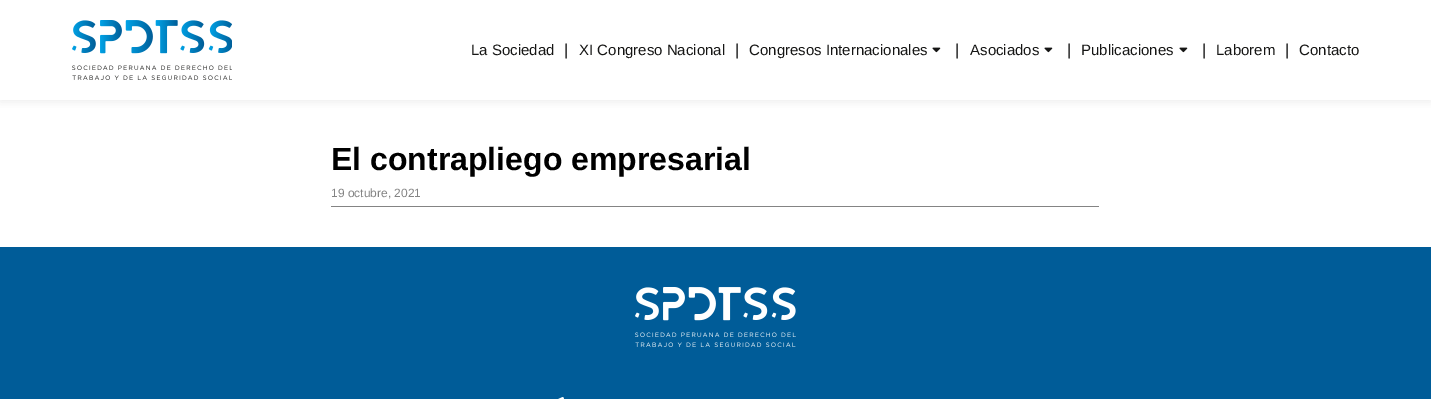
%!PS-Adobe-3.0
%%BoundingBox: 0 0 1431 399
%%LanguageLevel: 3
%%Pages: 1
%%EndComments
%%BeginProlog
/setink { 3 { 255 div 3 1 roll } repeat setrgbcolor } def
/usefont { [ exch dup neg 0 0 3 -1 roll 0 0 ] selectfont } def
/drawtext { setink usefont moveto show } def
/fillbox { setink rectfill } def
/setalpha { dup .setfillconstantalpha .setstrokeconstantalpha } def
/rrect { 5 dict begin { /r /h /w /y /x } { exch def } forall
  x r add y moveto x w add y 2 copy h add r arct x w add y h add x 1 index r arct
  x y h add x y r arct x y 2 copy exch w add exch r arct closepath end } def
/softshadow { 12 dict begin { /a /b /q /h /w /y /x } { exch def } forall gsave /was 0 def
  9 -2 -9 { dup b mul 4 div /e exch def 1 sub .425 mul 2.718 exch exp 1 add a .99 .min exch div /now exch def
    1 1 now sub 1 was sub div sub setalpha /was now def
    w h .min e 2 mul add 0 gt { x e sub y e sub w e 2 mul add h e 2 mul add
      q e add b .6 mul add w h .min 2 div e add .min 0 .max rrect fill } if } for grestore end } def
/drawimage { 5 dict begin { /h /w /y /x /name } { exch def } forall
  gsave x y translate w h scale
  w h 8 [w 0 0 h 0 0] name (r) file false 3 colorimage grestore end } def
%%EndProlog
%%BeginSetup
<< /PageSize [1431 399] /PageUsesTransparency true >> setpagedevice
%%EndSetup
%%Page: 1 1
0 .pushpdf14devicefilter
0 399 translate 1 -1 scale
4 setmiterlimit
0 0 1431 399 255 255 255 fillbox
gsave
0 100 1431 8 rectclip
132 132 132 setink
0 2 1431 100 0 5 0.15 softshadow
grestore
(assets/img1.rgb) 72 20 160 60 drawimage
(La Sociedad) 471 55 /LiberationSans-Regular 15 22 22 21 drawtext
(|) 564 55 /LiberationSans-Regular 16 0 0 0 drawtext
(XI Congreso Nacional) 579 55 /LiberationSans-Regular 15 22 22 21 drawtext
(|) 735 55 /LiberationSans-Regular 16 0 0 0 drawtext
(Congresos Internacionales) 749 55 /LiberationSans-Regular 15 22 22 21 drawtext
(assets/img2.rgb) 932 47 9 6 drawimage
(|) 955 55 /LiberationSans-Regular 16 0 0 0 drawtext
(Asociados) 970 55 /LiberationSans-Regular 15 22 22 21 drawtext
(assets/img2.rgb) 1044 47 9 6 drawimage
(|) 1067 55 /LiberationSans-Regular 16 0 0 0 drawtext
(Publicaciones) 1081 55 /LiberationSans-Regular 15 22 22 21 drawtext
(assets/img2.rgb) 1179 47 9 6 drawimage
(|) 1202 55 /LiberationSans-Regular 16 0 0 0 drawtext
(Laborem) 1216 55 /LiberationSans-Regular 15 22 22 21 drawtext
(|) 1285 55 /LiberationSans-Regular 16 0 0 0 drawtext
(Contacto) 1299 55 /LiberationSans-Regular 15 22 22 21 drawtext
331 206 768 1 132 132 132 fillbox
(El contrapliego empresarial) 331 170 /LiberationSans-Bold 32 0 0 0 drawtext
(19 octubre, 2021) 331 197 /LiberationSans-Regular 12 132 132 132 drawtext
0 247 1431 152 0 92 152 fillbox
(assets/img3.rgb) 635 287 161 60 drawimage
(assets/img4.rgb) 558 397 6 2 drawimage
.poppdf14devicefilter showpage
%%EOF
